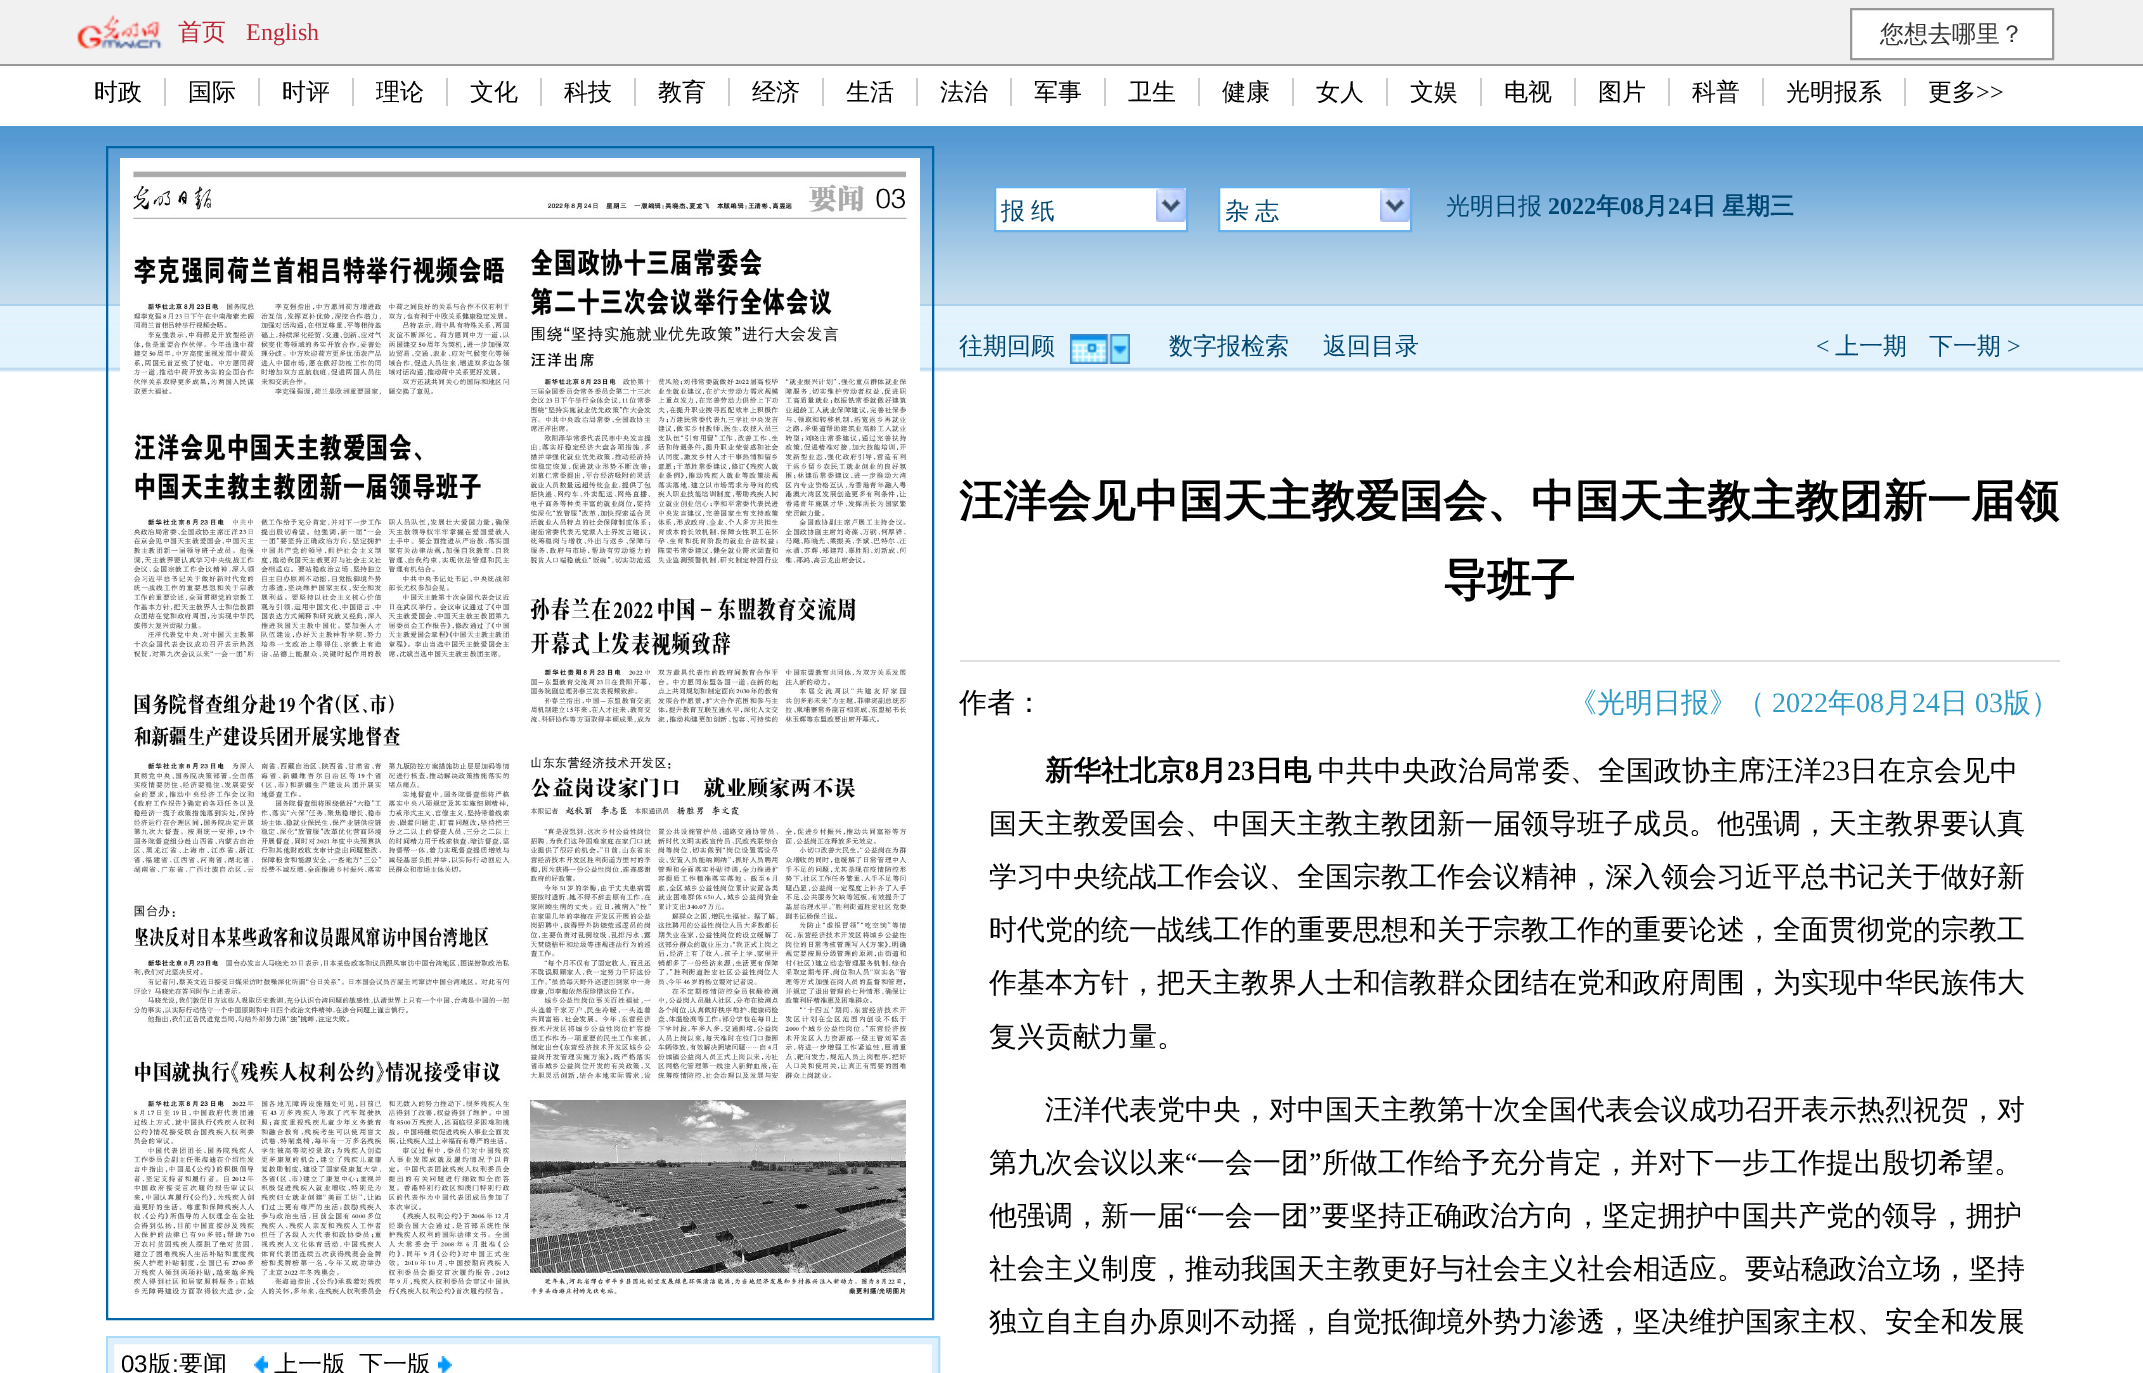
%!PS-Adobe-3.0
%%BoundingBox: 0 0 2143 1373
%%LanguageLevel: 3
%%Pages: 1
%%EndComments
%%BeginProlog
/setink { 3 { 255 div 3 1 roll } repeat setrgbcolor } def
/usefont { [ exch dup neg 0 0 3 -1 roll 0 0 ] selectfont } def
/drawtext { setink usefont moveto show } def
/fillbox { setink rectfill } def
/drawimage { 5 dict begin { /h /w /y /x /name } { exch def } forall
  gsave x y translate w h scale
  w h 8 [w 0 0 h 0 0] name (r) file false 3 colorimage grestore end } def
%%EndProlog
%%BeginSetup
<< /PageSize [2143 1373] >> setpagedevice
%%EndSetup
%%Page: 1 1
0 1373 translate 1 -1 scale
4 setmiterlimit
0 0 2143 1373 255 255 255 fillbox
0 0 2143 64 241 241 241 fillbox
0 64 2143 2 153 153 153 fillbox
(assets/img1.rgb) 76 14 87 37 drawimage
(首页) 178 40 /WenQuanYiZenHei-Medium 24 187 39 55 drawtext
(English) 246 40 /LiberationSerif-Regular 24 187 39 55 drawtext
255 255 255 setink
1851 9 moveto 2053 9 lineto 2053 59 lineto 1851 59 lineto closepath gsave fill grestore
153 153 153 setink
2 setlinewidth
stroke
(您想去哪里？) 1880 42 /WenQuanYiZenHei-Medium 24 51 51 51 drawtext
164 78 2 28 204 204 204 fillbox
(时政) 94 100 /WenQuanYiZenHei-Medium 24 0 0 0 drawtext
258 78 2 28 204 204 204 fillbox
(国际) 188 100 /WenQuanYiZenHei-Medium 24 0 0 0 drawtext
352 78 2 28 204 204 204 fillbox
(时评) 282 100 /WenQuanYiZenHei-Medium 24 0 0 0 drawtext
446 78 2 28 204 204 204 fillbox
(理论) 376 100 /WenQuanYiZenHei-Medium 24 0 0 0 drawtext
540 78 2 28 204 204 204 fillbox
(文化) 470 100 /WenQuanYiZenHei-Medium 24 0 0 0 drawtext
634 78 2 28 204 204 204 fillbox
(科技) 564 100 /WenQuanYiZenHei-Medium 24 0 0 0 drawtext
728 78 2 28 204 204 204 fillbox
(教育) 658 100 /WenQuanYiZenHei-Medium 24 0 0 0 drawtext
822 78 2 28 204 204 204 fillbox
(经济) 752 100 /WenQuanYiZenHei-Medium 24 0 0 0 drawtext
916 78 2 28 204 204 204 fillbox
(生活) 846 100 /WenQuanYiZenHei-Medium 24 0 0 0 drawtext
1010 78 2 28 204 204 204 fillbox
(法治) 940 100 /WenQuanYiZenHei-Medium 24 0 0 0 drawtext
1104 78 2 28 204 204 204 fillbox
(军事) 1034 100 /WenQuanYiZenHei-Medium 24 0 0 0 drawtext
1198 78 2 28 204 204 204 fillbox
(卫生) 1128 100 /WenQuanYiZenHei-Medium 24 0 0 0 drawtext
1292 78 2 28 204 204 204 fillbox
(健康) 1222 100 /WenQuanYiZenHei-Medium 24 0 0 0 drawtext
1386 78 2 28 204 204 204 fillbox
(女人) 1316 100 /WenQuanYiZenHei-Medium 24 0 0 0 drawtext
1480 78 2 28 204 204 204 fillbox
(文娱) 1410 100 /WenQuanYiZenHei-Medium 24 0 0 0 drawtext
1574 78 2 28 204 204 204 fillbox
(电视) 1504 100 /WenQuanYiZenHei-Medium 24 0 0 0 drawtext
1668 78 2 28 204 204 204 fillbox
(图片) 1598 100 /WenQuanYiZenHei-Medium 24 0 0 0 drawtext
1762 78 2 28 204 204 204 fillbox
(科普) 1692 100 /WenQuanYiZenHei-Medium 24 0 0 0 drawtext
1904 78 2 28 204 204 204 fillbox
(光明报系) 1786 100 /WenQuanYiZenHei-Medium 24 0 0 0 drawtext
(更多) 1928 100 /WenQuanYiZenHei-Medium 24 0 0 0 drawtext
(>>) 1976 100 /LiberationSerif-Regular 24 0 0 0 drawtext
(assets/img2.rgb) 0 126 2143 178 drawimage
0 304 2143 2 172 208 234 fillbox
255 255 255 setink
995 187 moveto 1187 187 lineto 1187 231 lineto 995 231 lineto closepath gsave fill grestore
102 177 235 setink
stroke
(报) 1001 219 /WenQuanYiZenHei-Medium 24 0 72 115 drawtext
(纸) 1031 219 /WenQuanYiZenHei-Medium 24 0 72 115 drawtext
(assets/img3.rgb) 1156 188 30 34 drawimage
255 255 255 setink
1219 187 moveto 1411 187 lineto 1411 231 lineto 1219 231 lineto closepath gsave fill grestore
102 177 235 setink
stroke
(杂) 1225 219 /WenQuanYiZenHei-Medium 24 0 72 115 drawtext
(志) 1255 219 /WenQuanYiZenHei-Medium 24 0 72 115 drawtext
(assets/img3.rgb) 1380 188 30 34 drawimage
(光明日报) 1446 214 /WenQuanYiZenHei-Medium 24 0 72 115 drawtext
(2022) 1548 214 /LiberationSerif-Bold 24 0 72 115 drawtext
(年) 1596 214 /WenQuanYiZenHei-Bold 24 0 72 115 drawtext
(08) 1620 214 /LiberationSerif-Bold 24 0 72 115 drawtext
(月) 1644 214 /WenQuanYiZenHei-Bold 24 0 72 115 drawtext
(24) 1668 214 /LiberationSerif-Bold 24 0 72 115 drawtext
/WenQuanYiZenHei-Bold 24 usefont
1692 214 moveto -1 0 32 (日 星期三) widthshow
(assets/img8.rgb) 0 306 2143 66 drawimage
(往期回顾) 959 354 /WenQuanYiZenHei-Medium 24 0 72 115 drawtext
(assets/img4.rgb) 1070 334 60 30 drawimage
(数字报检索) 1169 354 /WenQuanYiZenHei-Medium 24 0 72 115 drawtext
(返回目录) 1323 354 /WenQuanYiZenHei-Medium 24 0 72 115 drawtext
(<) 1816 354 /LiberationSerif-Regular 24 0 72 115 drawtext
(上一期) 1835 354 /WenQuanYiZenHei-Medium 24 0 72 115 drawtext
(下一期) 1929 354 /WenQuanYiZenHei-Medium 24 0 72 115 drawtext
(>) 2007 354 /LiberationSerif-Regular 24 0 72 115 drawtext
(汪洋会见中国天主教爱国会、中国天主教主教团新一届领) 959 516 /WenQuanYiZenHei-Bold 44 0 0 0 drawtext
(导班子) 1443 595 /WenQuanYiZenHei-Bold 44 0 0 0 drawtext
960 660 1100 2 222 222 222 fillbox
(作者：) 959 712 /WenQuanYiZenHei-Medium 28 0 0 0 drawtext
(《光明日报》（) 1569 712 /WenQuanYiZenHei-Medium 28 46 155 198 drawtext
(2022) 1772 712 /LiberationSerif-Regular 28 46 155 198 drawtext
(年) 1828 712 /WenQuanYiZenHei-Medium 28 46 155 198 drawtext
(08) 1856 712 /LiberationSerif-Regular 28 46 155 198 drawtext
(月) 1884 712 /WenQuanYiZenHei-Medium 28 46 155 198 drawtext
(24) 1912 712 /LiberationSerif-Regular 28 46 155 198 drawtext
(日) 1940 712 /WenQuanYiZenHei-Medium 28 46 155 198 drawtext
(03) 1975 712 /LiberationSerif-Regular 28 46 155 198 drawtext
(版）) 2003 712 /WenQuanYiZenHei-Medium 28 46 155 198 drawtext
(新华社北京) 1045 780 /WenQuanYiZenHei-Bold 28 0 0 0 drawtext
(8) 1185 780 /LiberationSerif-Bold 28 0 0 0 drawtext
(月) 1199 780 /WenQuanYiZenHei-Bold 28 0 0 0 drawtext
(23) 1227 780 /LiberationSerif-Bold 28 0 0 0 drawtext
(日电) 1255 780 /WenQuanYiZenHei-Bold 28 0 0 0 drawtext
(中共中央政治局常委、全国政协主席汪洋) 1318 780 /WenQuanYiZenHei-Medium 28 0 0 0 drawtext
(23) 1822 780 /LiberationSerif-Regular 28 0 0 0 drawtext
(日在京会见中) 1850 780 /WenQuanYiZenHei-Medium 28 0 0 0 drawtext
(国天主教爱国会、中国天主教主教团新一届领导班子成员。他强调，天主教界要认真) 989 833 /WenQuanYiZenHei-Medium 28 0 0 0 drawtext
(学习中央统战工作会议、全国宗教工作会议精神，深入领会习近平总书记关于做好新) 989 886 /WenQuanYiZenHei-Medium 28 0 0 0 drawtext
(时代党的统一战线工作的重要思想和关于宗教工作的重要论述，全面贯彻党的宗教工) 989 939 /WenQuanYiZenHei-Medium 28 0 0 0 drawtext
(作基本方针，把天主教界人士和信教群众团结在党和政府周围，为实现中华民族伟大) 989 992 /WenQuanYiZenHei-Medium 28 0 0 0 drawtext
(复兴贡献力量。) 989 1046 /WenQuanYiZenHei-Medium 28 0 0 0 drawtext
(汪洋代表党中央，对中国天主教第十次全国代表会议成功召开表示热烈祝贺，对) 1045 1119 /WenQuanYiZenHei-Medium 28 0 0 0 drawtext
(第九次会议以来) 989 1172 /WenQuanYiZenHei-Medium 28 0 0 0 drawtext
(“) 1185 1172 /LiberationSerif-Regular 28 0 0 0 drawtext
(一会一团) 1197 1172 /WenQuanYiZenHei-Medium 28 0 0 0 drawtext
(”) 1309 1172 /LiberationSerif-Regular 28 0 0 0 drawtext
(所做工作给予充分肯定，并对下一步工作提出殷切希望。) 1322 1172 /WenQuanYiZenHei-Medium 28 0 0 0 drawtext
(他强调，新一届) 989 1225 /WenQuanYiZenHei-Medium 28 0 0 0 drawtext
(“) 1185 1225 /LiberationSerif-Regular 28 0 0 0 drawtext
(一会一团) 1197 1225 /WenQuanYiZenHei-Medium 28 0 0 0 drawtext
(”) 1309 1225 /LiberationSerif-Regular 28 0 0 0 drawtext
(要坚持正确政治方向，坚定拥护中国共产党的领导，拥护) 1322 1225 /WenQuanYiZenHei-Medium 28 0 0 0 drawtext
(社会主义制度，推动我国天主教更好与社会主义社会相适应。要站稳政治立场，坚持) 989 1278 /WenQuanYiZenHei-Medium 28 0 0 0 drawtext
(独立自主自办原则不动摇，自觉抵御境外势力渗透，坚决维护国家主权、安全和发展) 989 1331 /WenQuanYiZenHei-Medium 28 0 0 0 drawtext
0 101 167 setink
107 147 826 1172 rectstroke
(assets/img5.rgb) 120 158 800 1140 drawimage
170 219 249 setink
107 1337 832 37 rectstroke
222 240 254 setink
6 setlinewidth
111 1341 824 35 rectstroke
(03) 121 1372 /LiberationSans-Regular 24 0 0 0 drawtext
(版) 148 1372 /WenQuanYiZenHei-Medium 24 0 0 0 drawtext
(:) 172 1372 /LiberationSans-Regular 24 0 0 0 drawtext
(要闻) 179 1372 /WenQuanYiZenHei-Medium 24 0 0 0 drawtext
(assets/img6.rgb) 254 1356 14 17 drawimage
(上一版) 274 1372 /WenQuanYiZenHei-Medium 24 0 0 0 drawtext
(下一版) 359 1372 /WenQuanYiZenHei-Medium 24 0 0 0 drawtext
(assets/img7.rgb) 438 1356 14 17 drawimage
showpage
%%EOF
